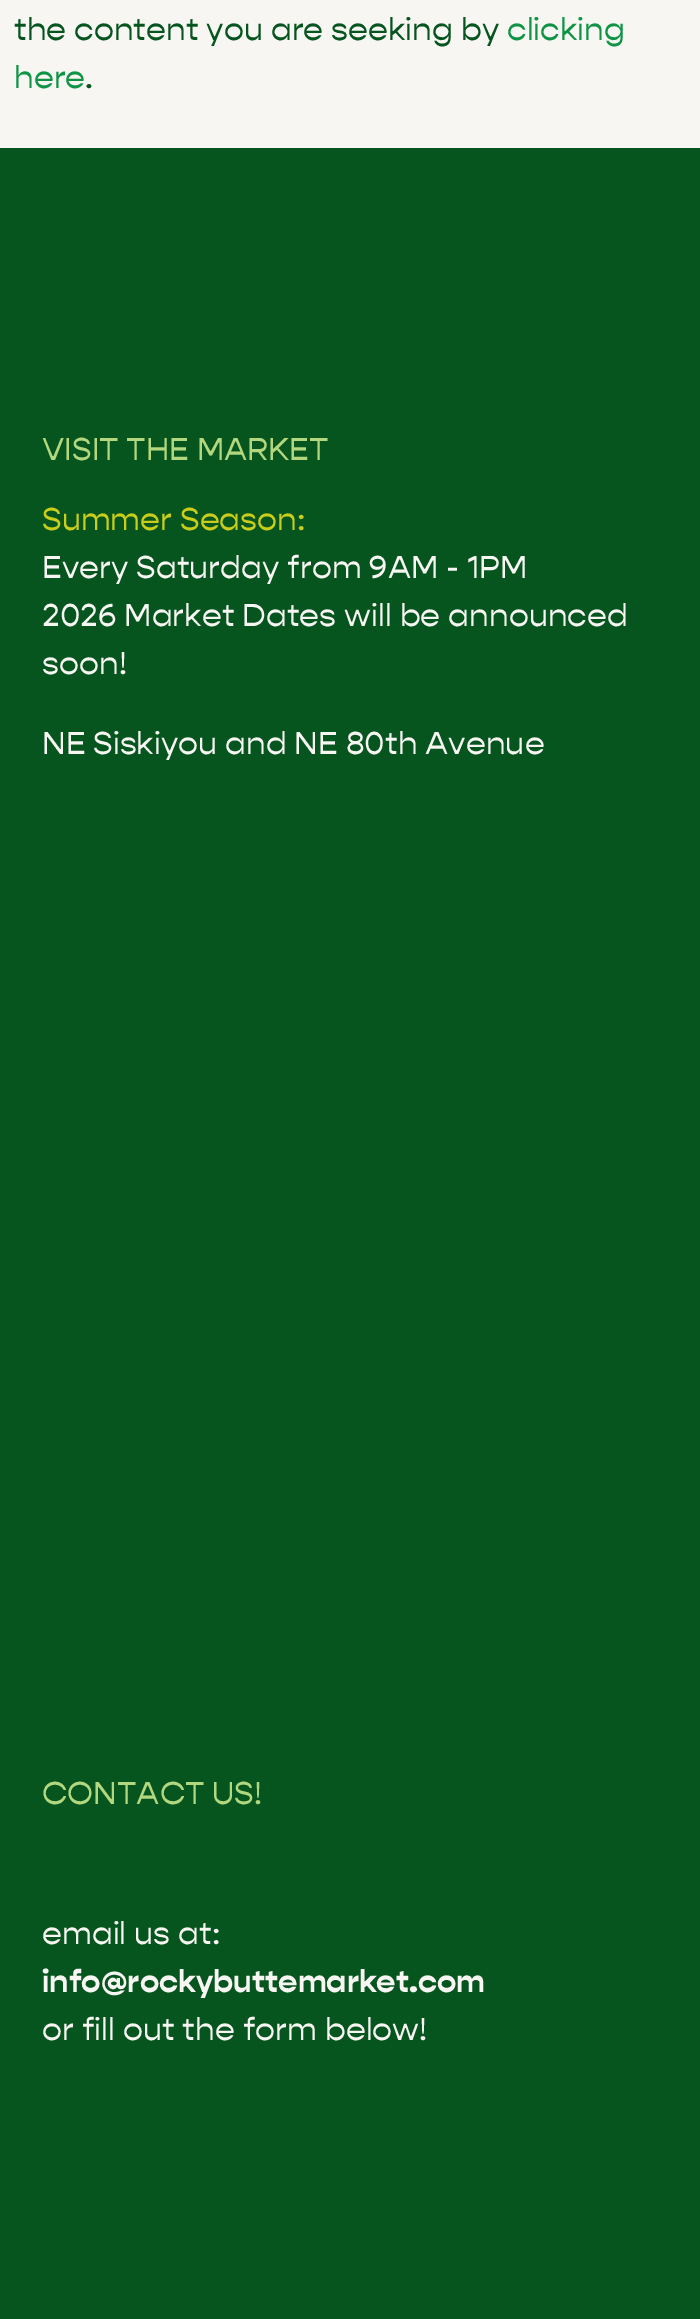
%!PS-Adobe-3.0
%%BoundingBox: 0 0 700 2319
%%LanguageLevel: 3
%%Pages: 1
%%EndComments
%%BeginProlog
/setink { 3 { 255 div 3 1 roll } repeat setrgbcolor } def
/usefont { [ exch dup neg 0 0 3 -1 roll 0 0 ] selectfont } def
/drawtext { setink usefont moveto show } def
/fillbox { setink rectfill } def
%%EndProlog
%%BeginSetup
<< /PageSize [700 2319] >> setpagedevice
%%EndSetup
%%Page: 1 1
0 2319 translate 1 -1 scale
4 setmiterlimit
0 0 700 2319 247 246 243 fillbox
(the content you are seeking by) 14 40 /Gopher-Regular 32 6 85 30 drawtext
(clicking) 507 40 /Gopher-Regular 32 14 148 68 drawtext
(here) 14 88 /Gopher-Regular 32 14 148 68 drawtext
(.) 85 88 /Gopher-Regular 32 6 85 30 drawtext
0 148 700 2171 6 85 30 fillbox
(VISIT THE MARKET) 42 460 /Gopher-Regular 32 179 215 127 drawtext
(Summer Season:) 42 530 /Gopher-Regular 32 202 206 26 drawtext
(Every Saturday from 9AM - 1PM) 42 578 /Gopher-Regular 32 247 246 243 drawtext
(2026 Market Dates will be announced) 42 626 /Gopher-Regular 32 247 246 243 drawtext
(soon!) 42 674 /Gopher-Regular 32 247 246 243 drawtext
(NE Siskiyou and NE 80th Avenue) 42 754 /Gopher-Regular 32 247 246 243 drawtext
(CONTACT US!) 42 1804 /Gopher-Regular 32 179 215 127 drawtext
(email us at:) 42 1944 /Gopher-Regular 32 247 246 243 drawtext
(info@rockybuttemarket.com) 42 1992 /Gopher-Bold 32 247 246 243 drawtext
(or fill out the form below!) 42 2040 /Gopher-Regular 32 247 246 243 drawtext
showpage
%%EOF
